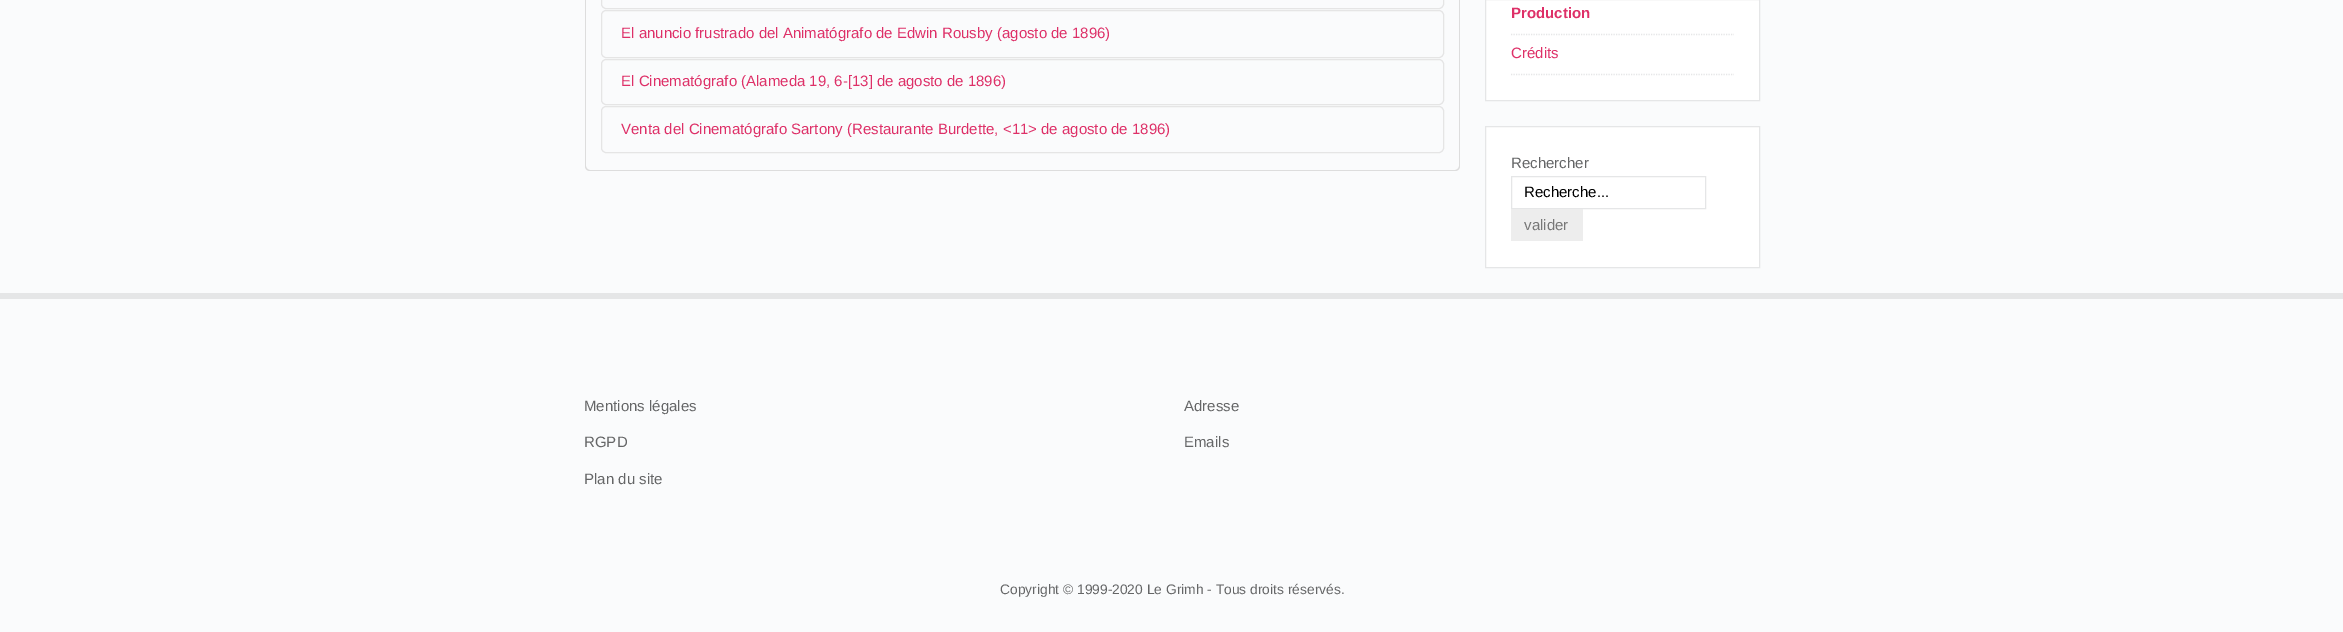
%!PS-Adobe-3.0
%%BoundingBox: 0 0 2343 632
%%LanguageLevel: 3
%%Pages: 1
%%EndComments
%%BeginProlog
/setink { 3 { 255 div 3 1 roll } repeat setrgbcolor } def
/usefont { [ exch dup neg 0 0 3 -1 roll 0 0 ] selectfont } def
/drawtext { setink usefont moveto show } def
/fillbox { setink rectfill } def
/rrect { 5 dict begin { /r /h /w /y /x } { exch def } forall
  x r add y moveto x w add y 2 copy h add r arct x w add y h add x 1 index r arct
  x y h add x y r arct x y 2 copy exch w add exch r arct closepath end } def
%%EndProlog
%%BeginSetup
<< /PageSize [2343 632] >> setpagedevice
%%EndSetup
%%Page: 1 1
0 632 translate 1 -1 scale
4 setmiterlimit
0 0 2343 632 250 251 252 fillbox
221 221 221 setink
585 -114 moveto 1460 -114 lineto 1460 166 lineto 1460 169 1458 171 1455 171 curveto 590 171 lineto 587 171 585 169 585 166 curveto closepath 586 -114 moveto 1459 -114 lineto 1459 166 lineto 1459 168 1457 170 1455 170 curveto 590 170 lineto 588 170 586 168 586 166 curveto closepath eofill
229 229 229 setink
601.5 -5.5 842 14 4.5 rrect stroke
601.5 10.5 842 47 4.5 rrect stroke
(El anuncio frustrado del Animatógrafo de Edwin Rousby \(agosto de 1896\)) 621 38 /LiberationSans-Regular 15 222 48 104 drawtext
229 229 229 setink
601.5 59.5 842 45 4.5 rrect stroke
(El Cinematógrafo \(Alameda 19, 6-[13] de agosto de 1896\)) 621 86 /LiberationSans-Regular 15 222 48 104 drawtext
229 229 229 setink
601.5 106.5 842 46 4.5 rrect stroke
(Venta del Cinematógrafo Sartony \(Restaurante Burdette, <11> de agosto de 1896\)) 621 134 /LiberationSans-Regular 15 222 48 104 drawtext
255 255 255 setink
1485.5 -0.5 moveto 1759.5 -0.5 lineto 1759.5 100.5 lineto 1485.5 100.5 lineto closepath gsave fill grestore
229 230 231 setink
stroke
1.2 setlinewidth
[1.25 1.25] 0 setdash
1511 34.5 moveto 1734 34.5 lineto stroke
(Production) 1511 18 /LiberationSans-Bold 15 222 48 104 drawtext
229 230 231 setink
1511 74.5 moveto 1734 74.5 lineto stroke
(Crédits) 1511 58 /LiberationSans-Regular 15 222 48 104 drawtext
255 255 255 setink
1485.5 126.5 moveto 1759.5 126.5 lineto 1759.5 267.5 lineto 1485.5 267.5 lineto closepath gsave fill grestore
229 230 231 setink
1 setlinewidth
[] 0 setdash
stroke
(Rechercher) 1511 168 /LiberationSans-Regular 15 101 102 103 drawtext
229 230 231 setink
1511.5 176.5 194 32 rectstroke
(Recherche...) 1524 197 /LiberationSans-Regular 15 0 0 0 drawtext
1511 209 72 32 237 237 237 fillbox
(valider) 1524 230 /LiberationSans-Regular 15 119 119 119 drawtext
0 293 2343 6 229 230 231 fillbox
(Mentions légales) 584 411 /LiberationSans-Regular 15 101 102 103 drawtext
(RGPD) 584 447 /LiberationSans-Regular 15 101 102 103 drawtext
(Plan du site) 584 484 /LiberationSans-Regular 15 101 102 103 drawtext
(Adresse) 1184 411 /LiberationSans-Regular 15 101 102 103 drawtext
(Emails) 1184 447 /LiberationSans-Regular 15 101 102 103 drawtext
(Copyright © 1999-2020 Le Grimh - Tous droits réservés.) 1000 594 /LiberationSans-Regular 13.8 101 102 103 drawtext
showpage
%%EOF
